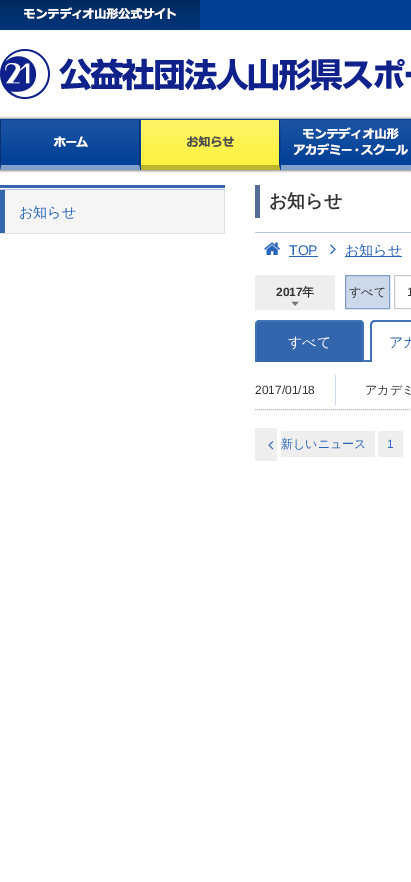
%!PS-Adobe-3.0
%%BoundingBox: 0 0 411 882
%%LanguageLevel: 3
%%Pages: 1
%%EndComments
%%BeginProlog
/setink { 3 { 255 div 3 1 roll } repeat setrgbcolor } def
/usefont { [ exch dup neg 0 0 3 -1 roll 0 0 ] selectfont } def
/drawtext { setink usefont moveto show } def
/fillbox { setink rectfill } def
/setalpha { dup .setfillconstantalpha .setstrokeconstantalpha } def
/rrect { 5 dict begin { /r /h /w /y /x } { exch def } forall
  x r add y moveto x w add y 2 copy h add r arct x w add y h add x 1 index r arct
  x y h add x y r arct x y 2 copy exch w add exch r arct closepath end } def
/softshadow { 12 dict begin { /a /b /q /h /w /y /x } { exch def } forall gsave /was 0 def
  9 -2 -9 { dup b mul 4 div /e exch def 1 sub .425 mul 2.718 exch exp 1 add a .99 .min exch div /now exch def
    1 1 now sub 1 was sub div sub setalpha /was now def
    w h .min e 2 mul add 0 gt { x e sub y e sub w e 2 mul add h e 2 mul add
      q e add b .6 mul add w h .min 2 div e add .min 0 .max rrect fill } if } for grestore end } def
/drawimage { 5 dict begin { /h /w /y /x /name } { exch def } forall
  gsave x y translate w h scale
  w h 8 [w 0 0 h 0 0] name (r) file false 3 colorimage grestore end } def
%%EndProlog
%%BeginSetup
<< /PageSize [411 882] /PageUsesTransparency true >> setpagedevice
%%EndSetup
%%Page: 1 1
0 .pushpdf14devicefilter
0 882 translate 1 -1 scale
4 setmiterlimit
0 0 411 882 255 255 255 fillbox
200 0 211 30 0 64 151 fillbox
(assets/img1.rgb) 0 0 200 30 drawimage
(assets/img2.rgb) 0 49 411 50 drawimage
51 51 51 setink
0 119 411 51 0 1.5 1 softshadow
gsave 0 119 moveto 411 119 lineto 411 120 lineto 0 120 lineto closepath clip newpath
<< /ShadingType 2 /ColorSpace /DeviceRGB /Coords [206 70 206 120] /Extend [true true] /Function << /FunctionType 3 /Domain [0 1] /Functions [<< /FunctionType 2 /Domain [0 1] /C0 [0.102 0.325 0.635] /C1 [0 0.251 0.592] /N 1 >> << /FunctionType 2 /Domain [0 1] /C0 [0 0.251 0.592] /C1 [0 0.251 0.592] /N 1 >>] /Bounds [0.5] /Encode [0 1 0 1] >> >> shfill grestore
gsave 0 120 moveto 281 120 lineto 281 170 lineto 0 170 lineto closepath clip newpath
<< /ShadingType 2 /ColorSpace /DeviceRGB /Coords [206 120 206 170] /Extend [true true] /Function << /FunctionType 3 /Domain [0 1] /Functions [<< /FunctionType 2 /Domain [0 1] /C0 [0.102 0.325 0.635] /C1 [0 0.251 0.592] /N 1 >> << /FunctionType 2 /Domain [0 1] /C0 [0 0.251 0.592] /C1 [0 0.251 0.592] /N 1 >>] /Bounds [0.5] /Encode [0 1 0 1] >> >> shfill grestore
(assets/img3.rgb) 1 120 139 50 drawimage
7 52 111 setink
140 120 moveto 140 170 lineto 139 165 lineto 139 120 lineto closepath fill
127 160 201 setink
140 170 moveto 0 170 lineto 1 165 lineto 139 165 lineto closepath fill
7 52 111 setink
0 170 moveto 0 120 lineto 1 120 lineto 1 165 lineto closepath fill
(assets/img4.rgb) 141 120 138 45 drawimage
280 120 moveto 280 170 lineto 279 165 lineto 279 120 lineto closepath fill
191 182 47 setink
280 170 moveto 141 170 lineto 141 165 lineto 279 165 lineto closepath fill
(assets/img5.rgb) 281 120 130 45 drawimage
127 160 201 setink
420 170 moveto 281 170 lineto 281 165 lineto 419 165 lineto closepath fill
0 185 225 3 51 102 172 fillbox
0 189 225 1 179 198 224 fillbox
224 190 1 44 225 225 225 fillbox
0 233 225 1 225 225 225 fillbox
5 190 219 43 245 245 245 fillbox
0 190 5 43 51 102 172 fillbox
(お知らせ) 19 217 /WenQuanYiZenHei-Medium 14 41 101 184 drawtext
255 185 5 33 82 110 149 fillbox
(お知らせ) 269 207 /WenQuanYiZenHei-Bold 18 51 51 51 drawtext
255 232 156 1 179 198 224 fillbox
(assets/img6.rgb) 264 242 16 13 drawimage
(TOP) 289 255 /LiberationSans-Regular 14 41 101 184 drawtext
289 256 29 1 41 101 184 fillbox
(assets/img7.rgb) 330 244 6 11 drawimage
345 256 57 1 41 101 184 fillbox
(お知らせ) 345 255 /WenQuanYiZenHei-Medium 14 41 101 184 drawtext
255 275 80 35 238 238 238 fillbox
(assets/img8.rgb) 291 301 8 5 drawimage
(2017) 276 296 /LiberationSans-Bold 12 51 51 51 drawtext
(年) 302 296 /WenQuanYiZenHei-Bold 12 51 51 51 drawtext
204 217 234 setink
345.5 275.5 moveto 389.5 275.5 lineto 389.5 308.5 lineto 345.5 308.5 lineto closepath gsave fill grestore
128 160 203 setink
stroke
(すべて) 349 296 /WenQuanYiZenHei-Medium 12 51 51 51 drawtext
204 204 204 setink
394.5 275.5 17 33 rectstroke
(1) 407 296 /LiberationSans-Regular 12 51 51 51 drawtext
364 360 6 2 64 115 179 fillbox
51 102 172 setink
260 320 moveto 359 320 lineto 362 320 364 322 364 325 curveto 364 362 lineto 255 362 lineto 255 325 lineto 255 322 257 320 260 320 curveto closepath fill
64 115 179 setink
260 320 moveto 359 320 lineto 362 320 364 322 364 325 curveto 364 362 lineto 255 362 lineto 255 325 lineto 255 322 257 320 260 320 curveto closepath 260 322 moveto 359 322 lineto 361 322 362 323 362 325 curveto 362 362 lineto 257 362 lineto 257 325 lineto 257 323 258 322 260 322 curveto closepath eofill
(すべて) 288 347 /WenQuanYiZenHei-Medium 14 255 255 255 drawtext
64 115 179 setink
375 320 moveto 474 320 lineto 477 320 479 322 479 325 curveto 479 362 lineto 370 362 lineto 370 325 lineto 370 322 372 320 375 320 curveto closepath 375 322 moveto 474 322 lineto 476 322 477 323 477 325 curveto 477 362 lineto 372 362 lineto 372 325 lineto 372 323 373 322 375 322 curveto closepath eofill
(アカ) 389 347 /WenQuanYiZenHei-Medium 14 51 102 172 drawtext
187 187 187 setink
[1 1] 0 setdash
255 409.5 moveto 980 409.5 lineto stroke
(2017/01/18) 255 394 /LiberationSans-Regular 12 51 51 51 drawtext
335 375 1 30 204 217 234 fillbox
(アカデミ) 365 394 /WenQuanYiZenHei-Medium 12 51 51 51 drawtext
255 428 22 33 238 238 238 fillbox
281 431 94 26 238 238 238 fillbox
(assets/img9.rgb) 268 441 6 9 drawimage
(新しいニュース) 281 448 /WenQuanYiZenHei-Medium 12 41 101 184 drawtext
378 431 25 26 238 238 238 fillbox
(1) 387 448 /LiberationSans-Regular 12 41 101 184 drawtext
.poppdf14devicefilter showpage
%%EOF
